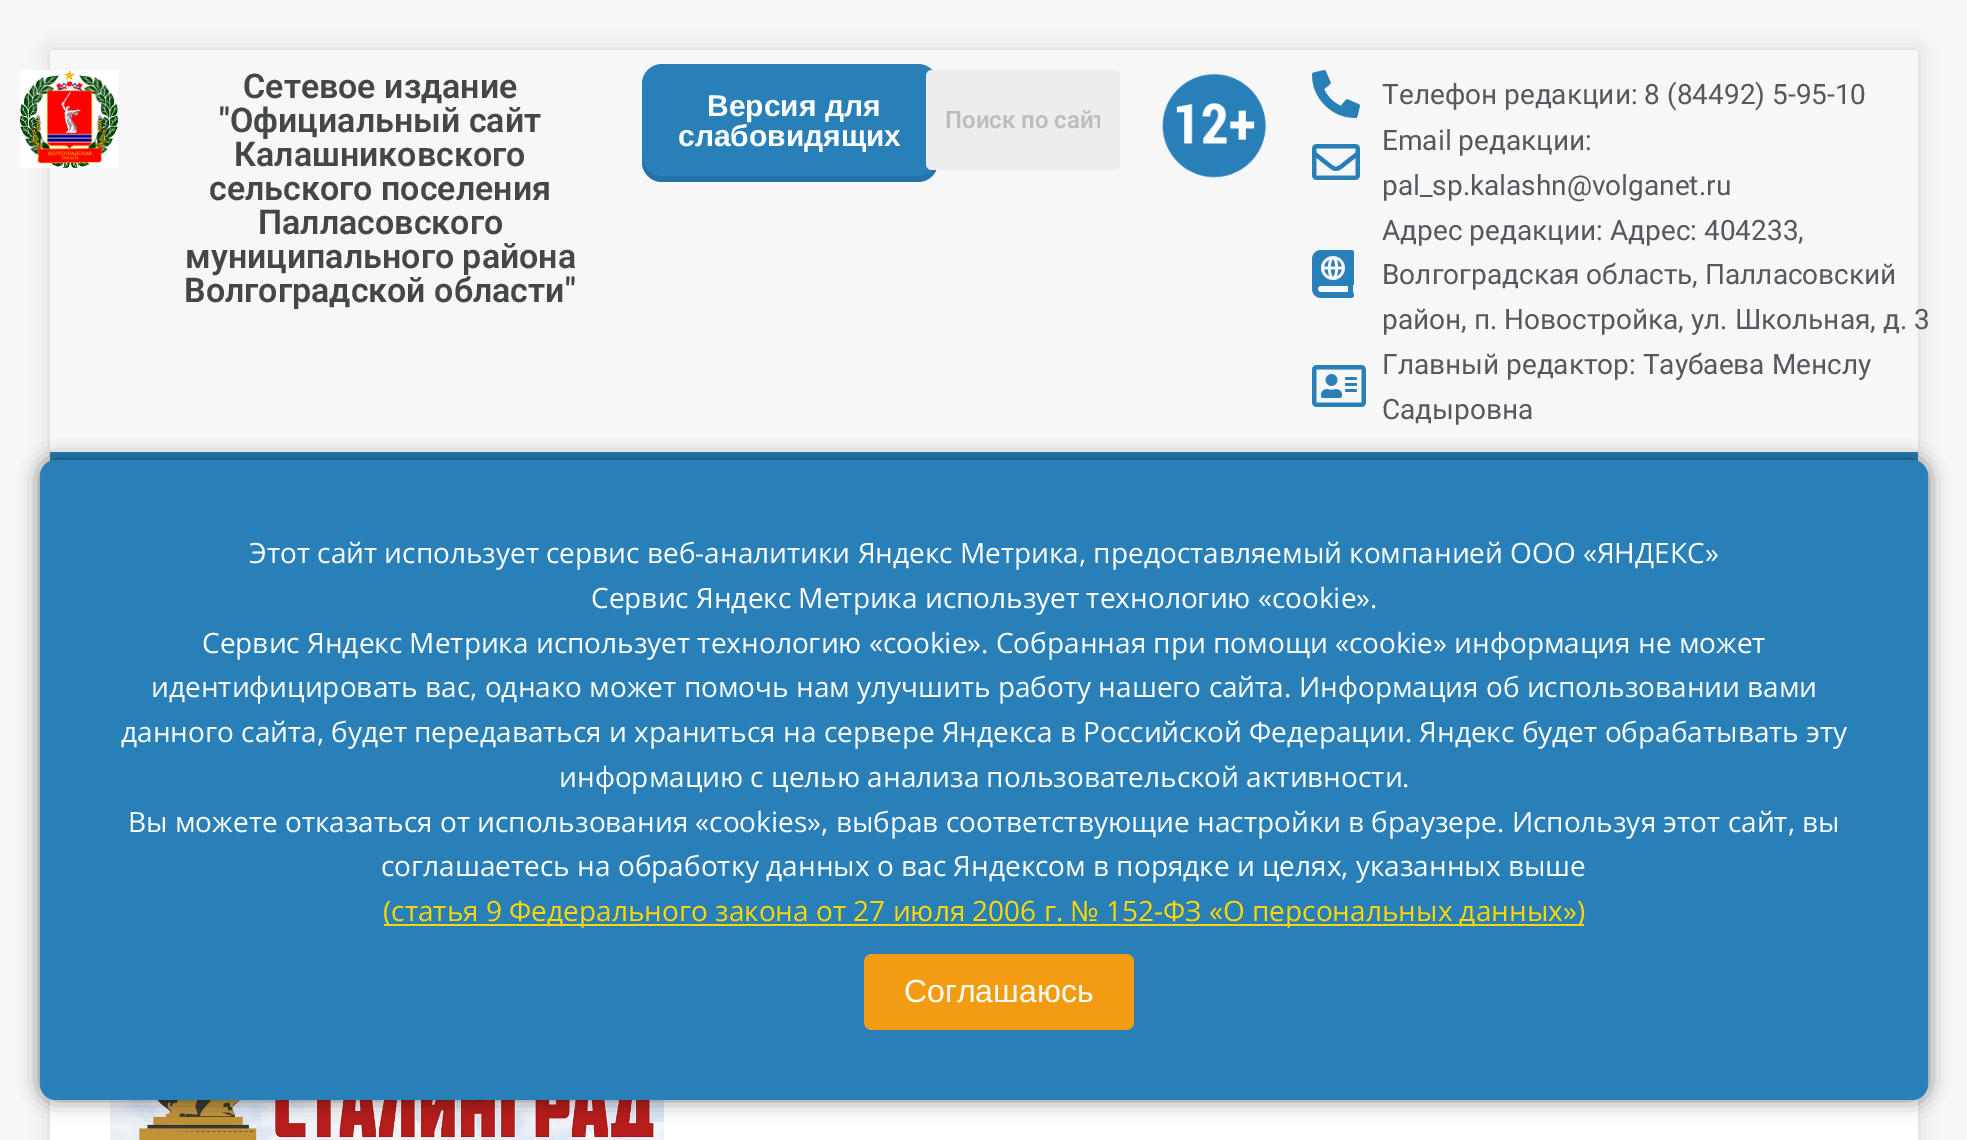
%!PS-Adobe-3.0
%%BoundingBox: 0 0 1967 1140
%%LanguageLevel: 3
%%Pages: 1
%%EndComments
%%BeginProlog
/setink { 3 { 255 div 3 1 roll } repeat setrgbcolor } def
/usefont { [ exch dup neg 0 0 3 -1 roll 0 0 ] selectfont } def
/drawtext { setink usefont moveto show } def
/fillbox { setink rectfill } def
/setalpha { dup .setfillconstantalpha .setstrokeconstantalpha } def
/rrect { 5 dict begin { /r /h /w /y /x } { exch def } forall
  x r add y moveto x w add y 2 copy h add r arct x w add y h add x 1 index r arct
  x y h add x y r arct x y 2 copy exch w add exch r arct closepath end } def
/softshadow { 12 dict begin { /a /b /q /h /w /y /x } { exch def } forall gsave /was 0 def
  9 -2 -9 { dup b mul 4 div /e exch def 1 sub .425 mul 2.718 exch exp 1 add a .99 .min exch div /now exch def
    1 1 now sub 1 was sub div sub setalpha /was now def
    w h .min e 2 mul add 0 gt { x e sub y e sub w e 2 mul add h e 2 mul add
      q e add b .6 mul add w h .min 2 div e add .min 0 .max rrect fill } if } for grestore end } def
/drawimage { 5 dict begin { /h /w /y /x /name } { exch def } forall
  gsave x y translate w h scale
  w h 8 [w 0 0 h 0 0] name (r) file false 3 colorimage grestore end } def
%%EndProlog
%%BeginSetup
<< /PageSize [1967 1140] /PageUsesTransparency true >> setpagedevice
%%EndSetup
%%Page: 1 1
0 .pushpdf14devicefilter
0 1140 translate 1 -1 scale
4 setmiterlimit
0 0 1967 1140 247 247 247 fillbox
gsave
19 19 moveto 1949 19 lineto 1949 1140 lineto 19 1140 lineto closepath 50 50 moveto 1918 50 lineto 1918 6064 lineto 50 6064 lineto closepath eoclip newpath
50 50 50 setink
50 50 1868 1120 0 10 0.17 softshadow
grestore
(assets/img1.rgb) 20 70 98 98 drawimage
(Сетевое издание) 243 98 /Roboto-SemiBold 34 68 71 72 drawtext
("Официальный сайт) 219 132 /Roboto-SemiBold 34 68 71 72 drawtext
(Калашниковского) 234 166 /Roboto-SemiBold 34 68 71 72 drawtext
(сельского поселения) 209 200 /Roboto-SemiBold 34 68 71 72 drawtext
(Палласовского) 258 234 /Roboto-SemiBold 34 68 71 72 drawtext
(муниципального района) 185 268 /Roboto-SemiBold 34 68 71 72 drawtext
(Волгоградской области") 184 302 /Roboto-SemiBold 34 68 71 72 drawtext
41 128 185 setink
642 64 296 118 20 rrect fill
0.1 setalpha
0 0 0 setink
642 156 moveto 642 162 lineto 642 173 651 182 662 182 curveto 918 182 lineto 929 182 938 173 938 162 curveto 938 156 lineto 938 167 929 176 918 176 curveto 662 176 lineto 651 176 642 167 642 156 curveto closepath fill
1 setalpha
(Версия для) 707 116 /LiberationSans-Bold 30 255 255 255 drawtext
(слабовидящих) 678 146 /LiberationSans-Bold 30 255 255 255 drawtext
237 237 237 setink
926 70 194 100 6 rrect fill
gsave
946 106 154 28 rectclip
(Поиск по сайт) 945 128 /Roboto-SemiBold 24 189 189 189 drawtext
grestore
(assets/img2.rgb) 1162 73 104 105 drawimage
(assets/img3.rgb) 1312 70 48 48 drawimage
(Телефон редакции: 8 \(84492\) 5-95-10) 1382 104 /Roboto-Regular 28 84 89 95 drawtext
(assets/img4.rgb) 1312 144 48 36 drawimage
(Email редакции:) 1382 150 /Roboto-Regular 28 84 89 95 drawtext
(pal_sp.kalashn@volganet.ru) 1382 195 /Roboto-Regular 28 84 89 95 drawtext
(assets/img5.rgb) 1312 250 42 48 drawimage
(Адрес редакции: Адрес: 404233,) 1382 240 /Roboto-Regular 28 84 89 95 drawtext
(Волгоградская область, Палласовский) 1382 284 /Roboto-Regular 28 84 89 95 drawtext
(район, п. Новостройка, ул. Школьная, д. 3) 1382 329 /Roboto-Regular 28 84 89 95 drawtext
(assets/img6.rgb) 1312 365 54 42 drawimage
(Главный редактор: Таубаева Менслу) 1382 374 /Roboto-Regular 28 84 89 95 drawtext
(Садыровна) 1382 419 /Roboto-Regular 28 84 89 95 drawtext
50 452 1868 10 41 128 185 fillbox
50 1098 1868 42 255 255 255 fillbox
(assets/img7.rgb) 110 1100 554 40 drawimage
0 0 0 setink
40 460 1888 640 16 10 0.5 softshadow
41 128 185 setink
40 460 1888 640 16 rrect fill
(Этот сайт использует сервис веб-аналитики Яндекс Метрика, предоставляемый компанией ООО «ЯНДЕКС») 249 563 /OpenSans-Regular 28 255 255 255 drawtext
(Сервис Яндекс Метрика использует технологию «cookie».) 591 608 /OpenSans-Regular 28 255 255 255 drawtext
(Сервис Яндекс Метрика использует технологию «cookie». Собранная при помощи «cookie» информация не может) 202 653 /OpenSans-Regular 28 255 255 255 drawtext
(идентифицировать вас, однако может помочь нам улучшить работу нашего сайта. Информация об использовании вами) 151 697 /OpenSans-Regular 28 255 255 255 drawtext
(данного сайта, будет передаваться и храниться на сервере Яндекса в Российской Федерации. Яндекс будет обрабатывать эту) 121 742 /OpenSans-Regular 28 255 255 255 drawtext
(информацию с целью анализа пользовательской активности.) 559 787 /OpenSans-Regular 28 255 255 255 drawtext
(Вы можете отказаться от использования «cookies», выбрав соответствующие настройки в браузере. Используя этот сайт, вы) 128 832 /OpenSans-Regular 28 255 255 255 drawtext
(соглашаетесь на обработку данных о вас Яндексом в порядке и целях, указанных выше) 381 876 /OpenSans-Regular 28 255 255 255 drawtext
384 924 1200 2 255 215 0 fillbox
(\(статья 9 Федерального закона от 27 июля 2006 г. № 152-ФЗ «О персональных данных»\)) 383 921 /OpenSans-Regular 28 255 215 0 drawtext
243 156 18 setink
864 954 270 76 8 rrect fill
(Соглашаюсь) 904 1002 /LiberationSans-Regular 32 255 255 255 drawtext
.poppdf14devicefilter showpage
%%EOF
